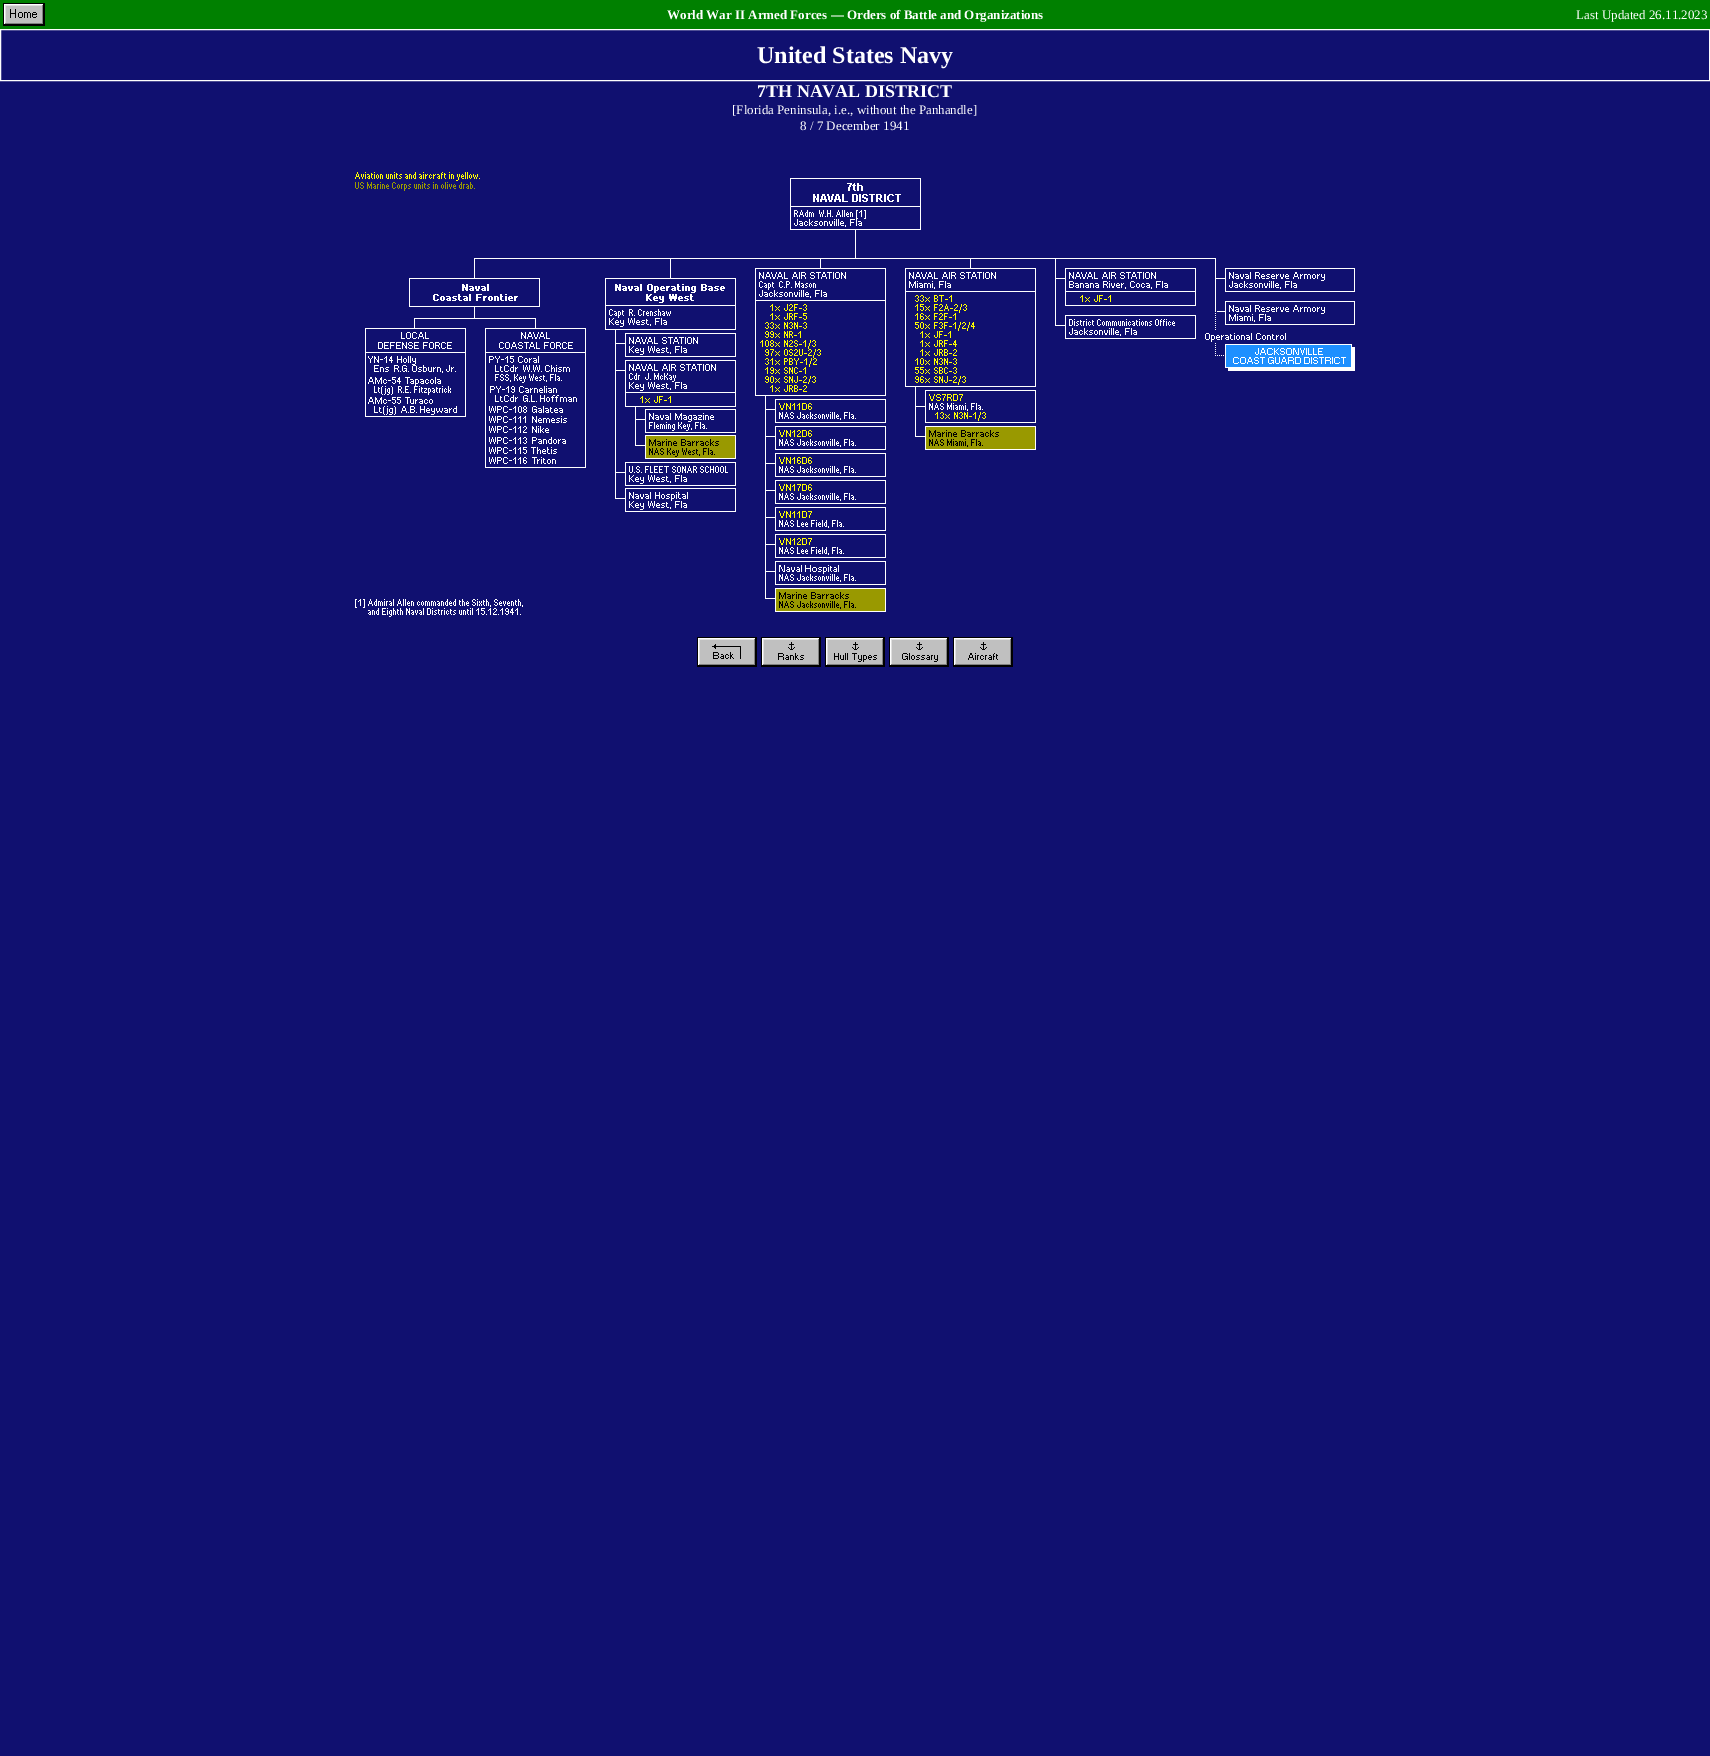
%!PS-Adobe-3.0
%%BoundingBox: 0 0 1710 1756
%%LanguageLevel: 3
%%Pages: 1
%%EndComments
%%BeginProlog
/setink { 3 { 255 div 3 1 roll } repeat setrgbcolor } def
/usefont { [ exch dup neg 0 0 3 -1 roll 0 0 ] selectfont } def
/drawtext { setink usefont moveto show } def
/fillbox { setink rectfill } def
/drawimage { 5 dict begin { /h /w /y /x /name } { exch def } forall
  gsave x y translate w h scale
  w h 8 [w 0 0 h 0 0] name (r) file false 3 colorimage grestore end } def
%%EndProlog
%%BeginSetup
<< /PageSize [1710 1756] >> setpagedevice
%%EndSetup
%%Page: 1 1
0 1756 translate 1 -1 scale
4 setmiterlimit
0 0 1710 1756 16 16 112 fillbox
0 0 1710 29 0 128 0 fillbox
(assets/img1.rgb) 3 3 42 23 drawimage
(World War II Armed Forces — Orders of Battle and Organizations) 667 19 /LiberationSerif-Bold 13 255 255 255 drawtext
(Last Updated 26.11.2023) 1576 19 /LiberationSerif-Regular 13 255 255 255 drawtext
0.5 29.5 1709 51 rectstroke
(United States Navy) 757 63 /LiberationSerif-Bold 24 255 255 255 drawtext
(7TH NAVAL DISTRICT) 757 97 /LiberationSerif-Bold 18 255 255 255 drawtext
([Florida Peninsula, i.e., without the Panhandle]) 732 114 /LiberationSerif-Regular 13 255 255 255 drawtext
(8 / 7 December 1941) 800 130 /LiberationSerif-Regular 13 255 255 255 drawtext
(assets/img2.rgb) 355 172 1000 445 drawimage
(assets/img3.rgb) 697 637 60 30 drawimage
(assets/img4.rgb) 761 637 60 30 drawimage
(assets/img5.rgb) 825 637 60 30 drawimage
(assets/img6.rgb) 889 637 60 30 drawimage
(assets/img7.rgb) 953 637 60 30 drawimage
showpage
%%EOF
